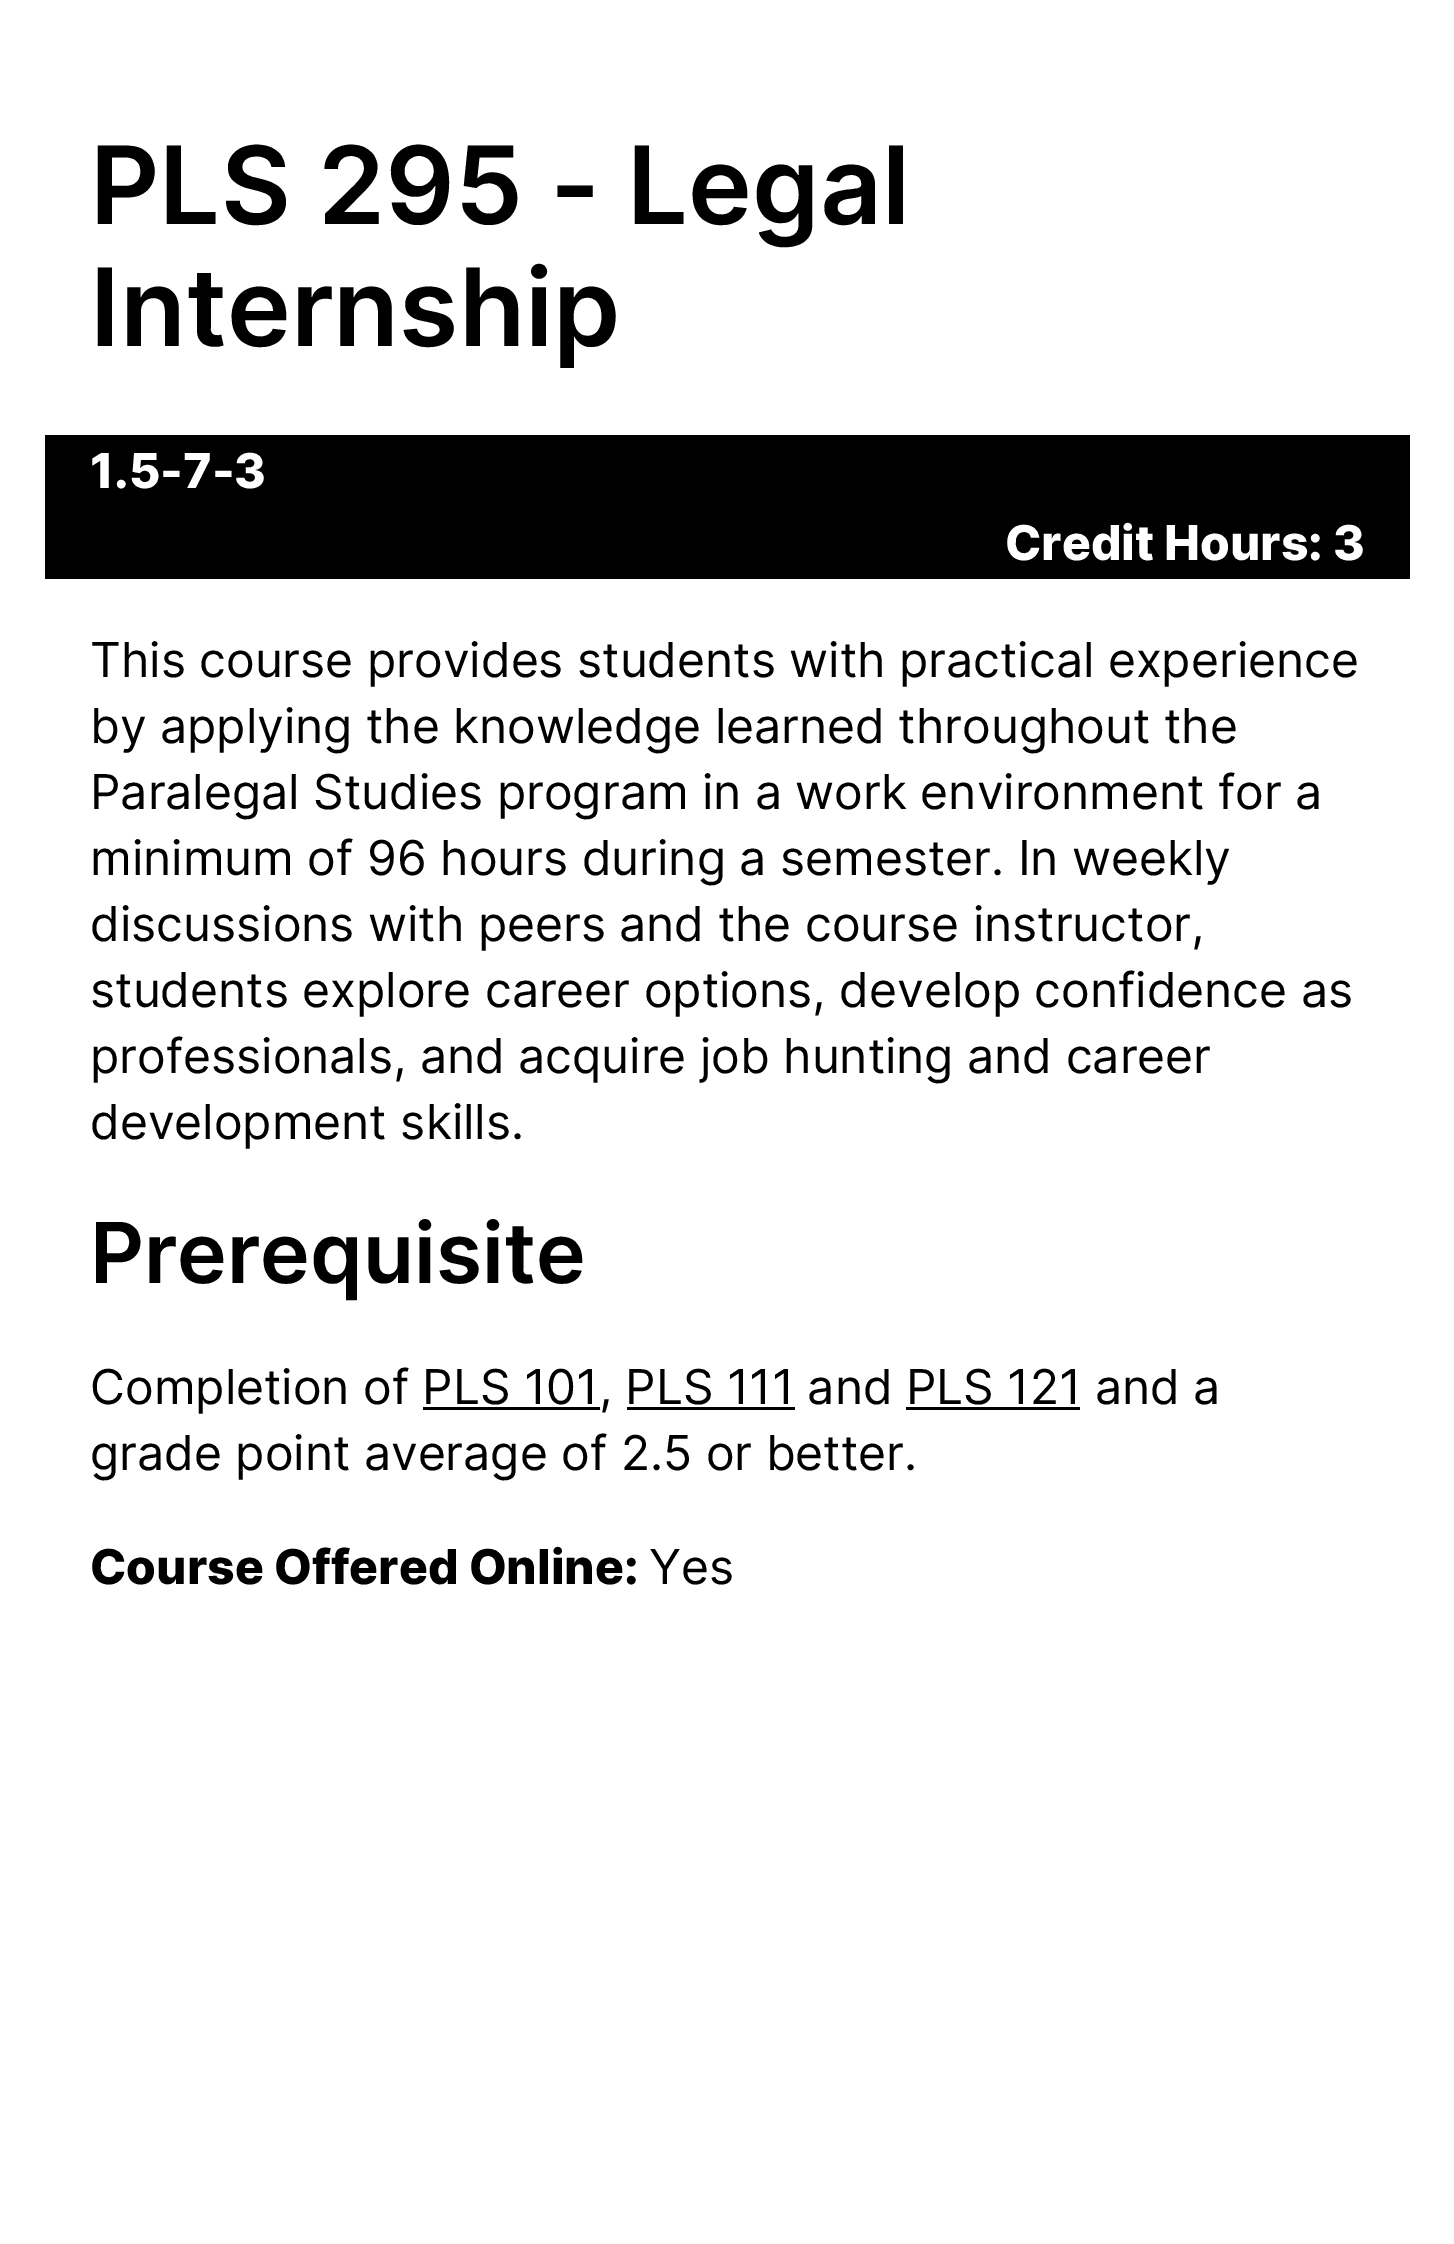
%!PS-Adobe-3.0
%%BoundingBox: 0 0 1454 2244
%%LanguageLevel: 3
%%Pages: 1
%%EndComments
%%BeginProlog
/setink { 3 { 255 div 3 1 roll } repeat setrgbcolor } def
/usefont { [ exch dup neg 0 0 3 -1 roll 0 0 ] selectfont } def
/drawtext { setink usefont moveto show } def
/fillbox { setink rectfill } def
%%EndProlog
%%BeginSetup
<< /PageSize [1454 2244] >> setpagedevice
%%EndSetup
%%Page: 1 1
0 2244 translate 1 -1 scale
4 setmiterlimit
0 0 1454 2244 255 255 255 fillbox
(PLS 295 - Legal) 90 224 /Inter-SemiBold 108 0 0 0 drawtext
(Internship) 90 346 /Inter-SemiBold 108 0 0 0 drawtext
45 435 1365 144 0 0 0 fillbox
(1.5-7-3) 90 488 /Inter-ExtraBold 48 255 255 255 drawtext
(Credit Hours: 3) 1005 560 /Inter-ExtraBold 48 255 255 255 drawtext
(This course provides students with practical experience) 90 677 /Inter-Regular 48 0 0 0 drawtext
(by applying the knowledge learned throughout the) 90 743 /Inter-Regular 48 0 0 0 drawtext
(Paralegal Studies program in a work environment for a) 90 809 /Inter-Regular 48 0 0 0 drawtext
(minimum of 96 hours during a semester. In weekly) 90 875 /Inter-Regular 48 0 0 0 drawtext
(discussions with peers and the course instructor,) 90 941 /Inter-Regular 48 0 0 0 drawtext
(students explore career options, develop confidence as) 90 1007 /Inter-Regular 48 0 0 0 drawtext
(professionals, and acquire job hunting and career) 90 1073 /Inter-Regular 48 0 0 0 drawtext
(development skills.) 90 1139 /Inter-Regular 48 0 0 0 drawtext
(Prerequisite) 90 1283 /Inter-SemiBold 84 0 0 0 drawtext
(Completion of PLS 101, PLS 111 and PLS 121 and a) 90 1404 /Inter-Regular 48 0 0 0 drawtext
423 1407 177 3 0 0 0 fillbox
627 1407 168 3 0 0 0 fillbox
906 1407 174 3 0 0 0 fillbox
(grade point average of 2.5 or better.) 90 1470 /Inter-Regular 48 0 0 0 drawtext
(Course Offered Online:) 90 1584 /Inter-ExtraBold 48 0 0 0 drawtext
(Yes) 649 1584 /Inter-Regular 48 0 0 0 drawtext
showpage
%%EOF
